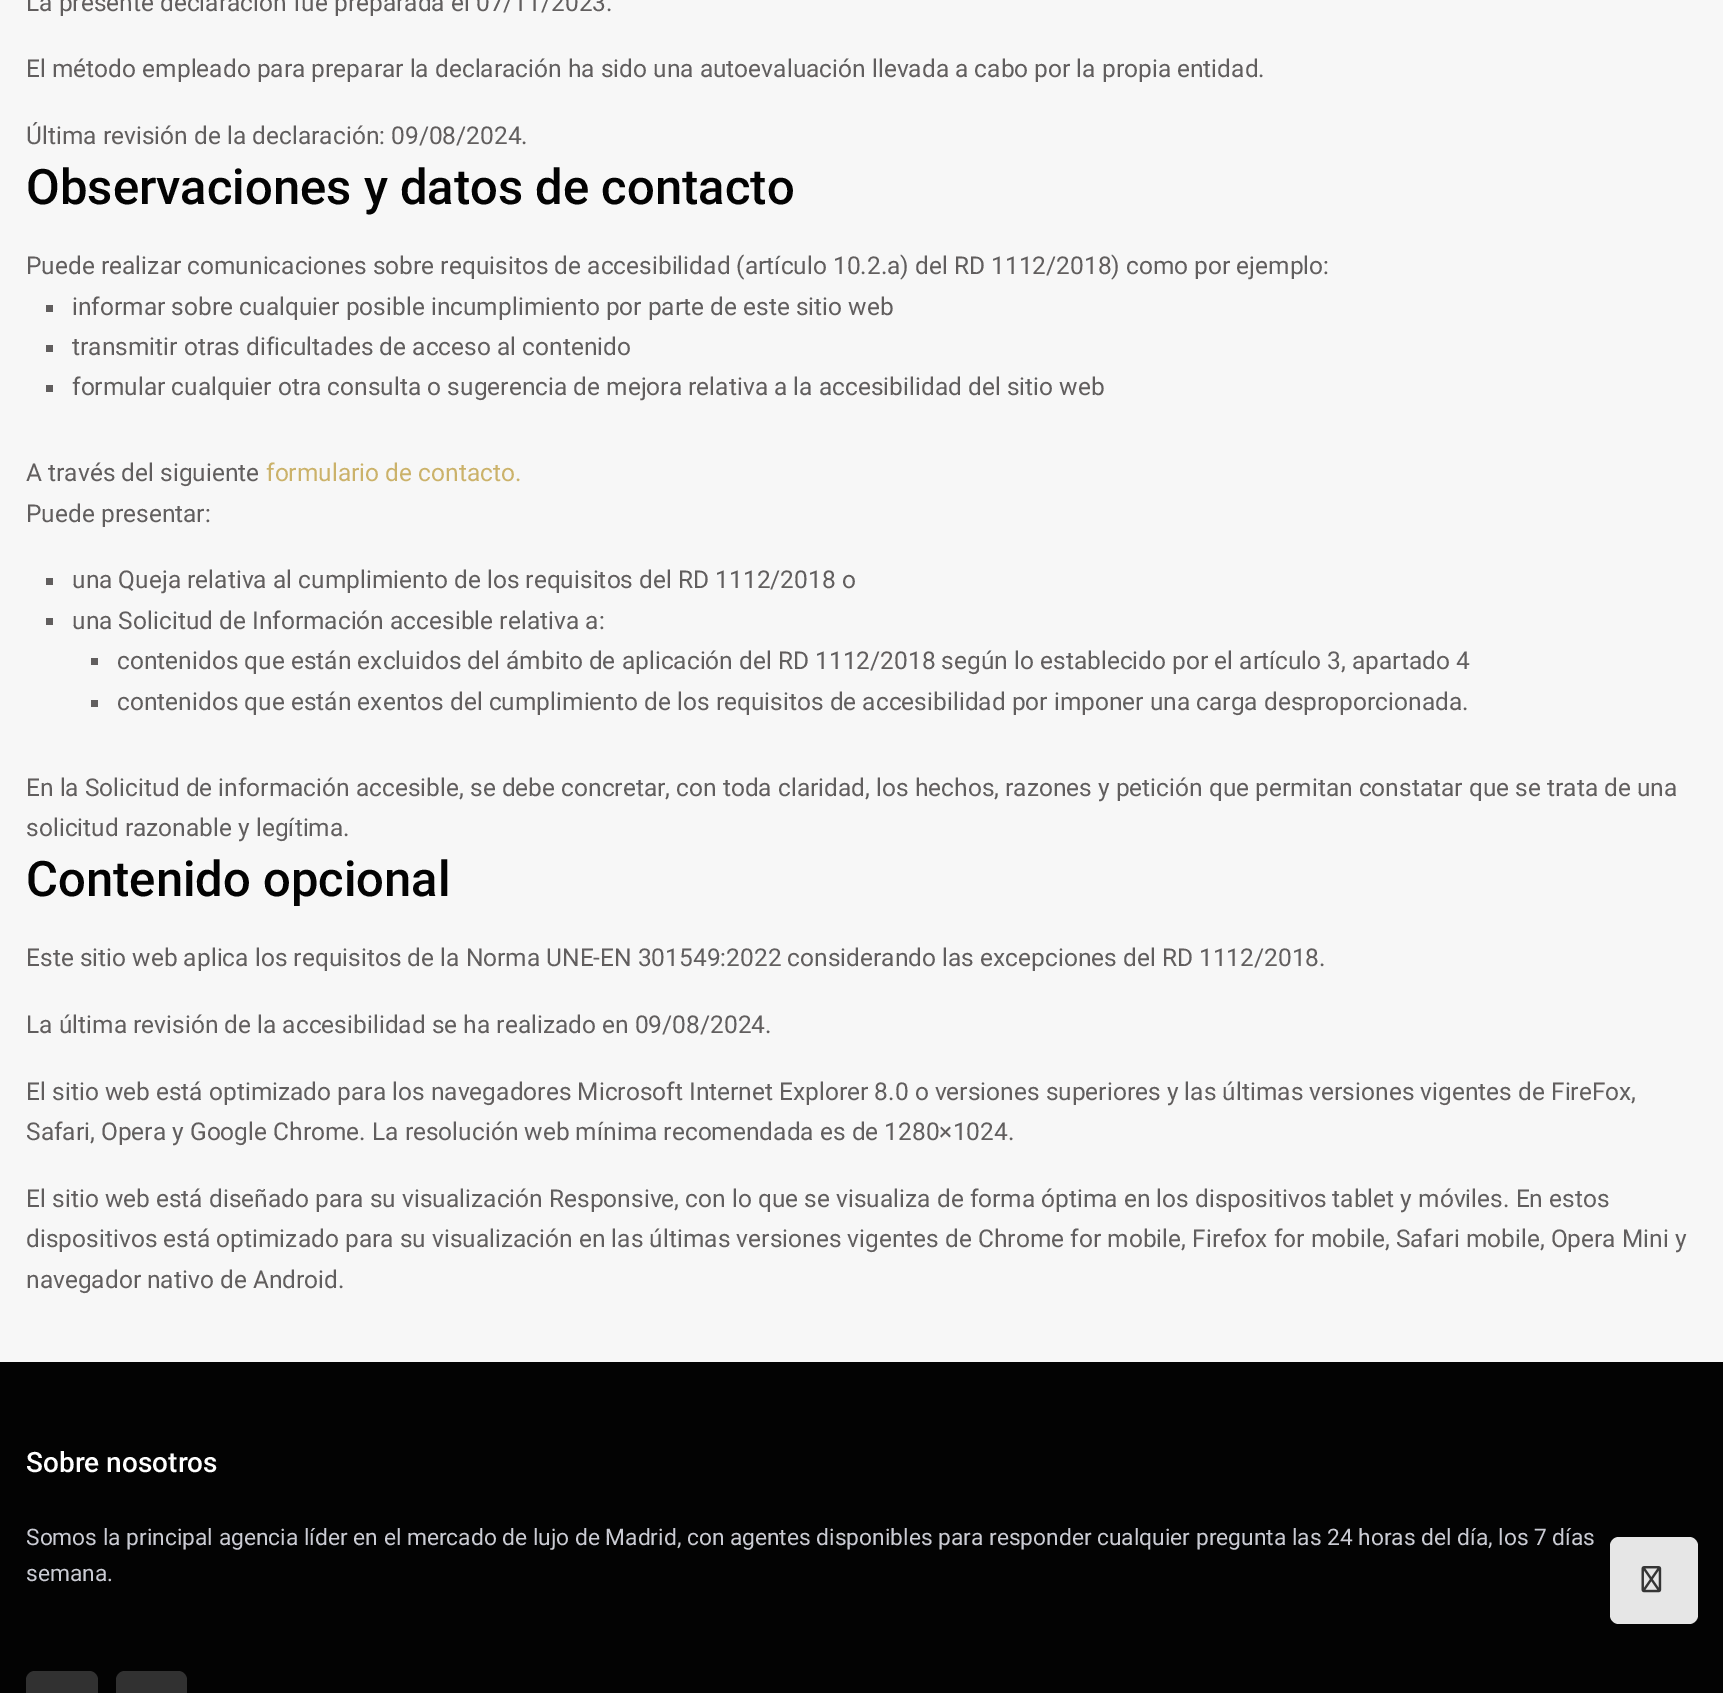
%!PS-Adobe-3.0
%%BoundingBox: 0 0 1723 1693
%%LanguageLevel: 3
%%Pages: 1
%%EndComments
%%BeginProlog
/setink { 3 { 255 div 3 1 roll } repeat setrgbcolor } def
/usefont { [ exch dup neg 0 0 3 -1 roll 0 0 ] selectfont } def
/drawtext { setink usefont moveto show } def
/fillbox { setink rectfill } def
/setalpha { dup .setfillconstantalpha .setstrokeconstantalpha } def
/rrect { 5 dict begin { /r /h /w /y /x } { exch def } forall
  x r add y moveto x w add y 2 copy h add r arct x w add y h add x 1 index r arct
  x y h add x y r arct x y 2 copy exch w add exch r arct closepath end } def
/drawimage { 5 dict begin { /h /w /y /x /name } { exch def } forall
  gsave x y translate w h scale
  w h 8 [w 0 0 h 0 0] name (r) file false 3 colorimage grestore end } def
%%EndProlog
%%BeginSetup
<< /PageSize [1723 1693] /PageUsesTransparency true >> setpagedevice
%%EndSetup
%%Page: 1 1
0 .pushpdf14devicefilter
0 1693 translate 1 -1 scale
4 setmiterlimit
0 0 1723 1693 247 247 247 fillbox
(La presente declaración fue preparada el 07/11/2023.) 26 11 /Roboto-Regular 24.5 97 94 94 drawtext
(El método empleado para preparar la declaración ha sido una autoevaluación llevada a cabo por la propia entidad.) 26 77 /Roboto-Regular 24.5 97 94 94 drawtext
(Última revisión de la declaración: 09/08/2024.) 26 144 /Roboto-Regular 24.5 97 94 94 drawtext
(Observaciones y datos de contacto) 26 204 /Roboto-Medium 49 3 3 3 drawtext
(Puede realizar comunicaciones sobre requisitos de accesibilidad \(artículo 10.2.a\) del RD 1112/2018\) como por ejemplo:) 26 274 /Roboto-Regular 24.5 97 94 94 drawtext
46 305 7 7 97 94 94 fillbox
(informar sobre cualquier posible incumplimiento por parte de este sitio web) 72 315 /Roboto-Regular 24.5 97 94 94 drawtext
46 345 7 7 97 94 94 fillbox
(transmitir otras dificultades de acceso al contenido) 72 355 /Roboto-Regular 24.5 97 94 94 drawtext
46 385 7 7 97 94 94 fillbox
(formular cualquier otra consulta o sugerencia de mejora relativa a la accesibilidad del sitio web) 72 395 /Roboto-Regular 24.5 97 94 94 drawtext
(A través del siguiente) 26 481 /Roboto-Regular 24.5 97 94 94 drawtext
(formulario de contacto.) 266 481 /Roboto-Regular 24.5 203 178 106 drawtext
(Puede presentar:) 26 522 /Roboto-Regular 24.5 97 94 94 drawtext
46 578 7 7 97 94 94 fillbox
(una Queja relativa al cumplimiento de los requisitos del RD 1112/2018 o) 72 588 /Roboto-Regular 24.5 97 94 94 drawtext
46 618 7 7 97 94 94 fillbox
(una Solicitud de Información accesible relativa a:) 72 629 /Roboto-Regular 24.5 97 94 94 drawtext
91 658 7 7 97 94 94 fillbox
(contenidos que están excluidos del ámbito de aplicación del RD 1112/2018 según lo establecido por el artículo 3, apartado 4) 117 669 /Roboto-Regular 24.5 97 94 94 drawtext
91 700 7 7 97 94 94 fillbox
(contenidos que están exentos del cumplimiento de los requisitos de accesibilidad por imponer una carga desproporcionada.) 117 710 /Roboto-Regular 24.5 97 94 94 drawtext
(En la Solicitud de información accesible, se debe concretar, con toda claridad, los hechos, razones y petición que permitan constatar que se trata de una) 26 796 /Roboto-Regular 24.5 97 94 94 drawtext
(solicitud razonable y legítima.) 26 836 /Roboto-Regular 24.5 97 94 94 drawtext
(Contenido opcional) 26 896 /Roboto-Medium 49 3 3 3 drawtext
(Este sitio web aplica los requisitos de la Norma UNE-EN 301549:2022 considerando las excepciones del RD 1112/2018.) 26 966 /Roboto-Regular 24.5 97 94 94 drawtext
(La última revisión de la accesibilidad se ha realizado en 09/08/2024.) 26 1033 /Roboto-Regular 24.5 97 94 94 drawtext
(El sitio web está optimizado para los navegadores Microsoft Internet Explorer 8.0 o versiones superiores y las últimas versiones vigentes de FireFox,) 26 1100 /Roboto-Regular 24.5 97 94 94 drawtext
(Safari, Opera y Google Chrome. La resolución web mínima recomendada es de 1280×1024.) 26 1140 /Roboto-Regular 24.5 97 94 94 drawtext
(El sitio web está diseñado para su visualización Responsive, con lo que se visualiza de forma óptima en los dispositivos tablet y móviles. En estos) 26 1207 /Roboto-Regular 24.5 97 94 94 drawtext
(dispositivos está optimizado para su visualización en las últimas versiones vigentes de Chrome for mobile, Firefox for mobile, Safari mobile, Opera Mini y) 26 1247 /Roboto-Regular 24.5 97 94 94 drawtext
(navegador nativo de Android.) 26 1288 /Roboto-Regular 24.5 97 94 94 drawtext
0 1362 1723 331 3 3 3 fillbox
(Sobre nosotros) 26 1472 /Roboto-Medium 28 255 255 255 drawtext
(Somos la principal agencia líder en el mercado de lujo de Madrid, con agentes disponibles para responder cualquier pregunta las 24 horas del día, los 7 días) 26 1545 /Roboto-Regular 22.75 202 203 211 drawtext
(semana.) 26 1581 /Roboto-Regular 22.75 202 203 211 drawtext
49 49 49 setink
26 1671 72 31 9 rrect fill
116 1671 71 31 9 rrect fill
0.9 setalpha
255 255 255 setink
1610 1537 88 87 9 rrect fill
1 setalpha
(assets/img1.rgb) 1641 1566 21 27 drawimage
.poppdf14devicefilter showpage
%%EOF
